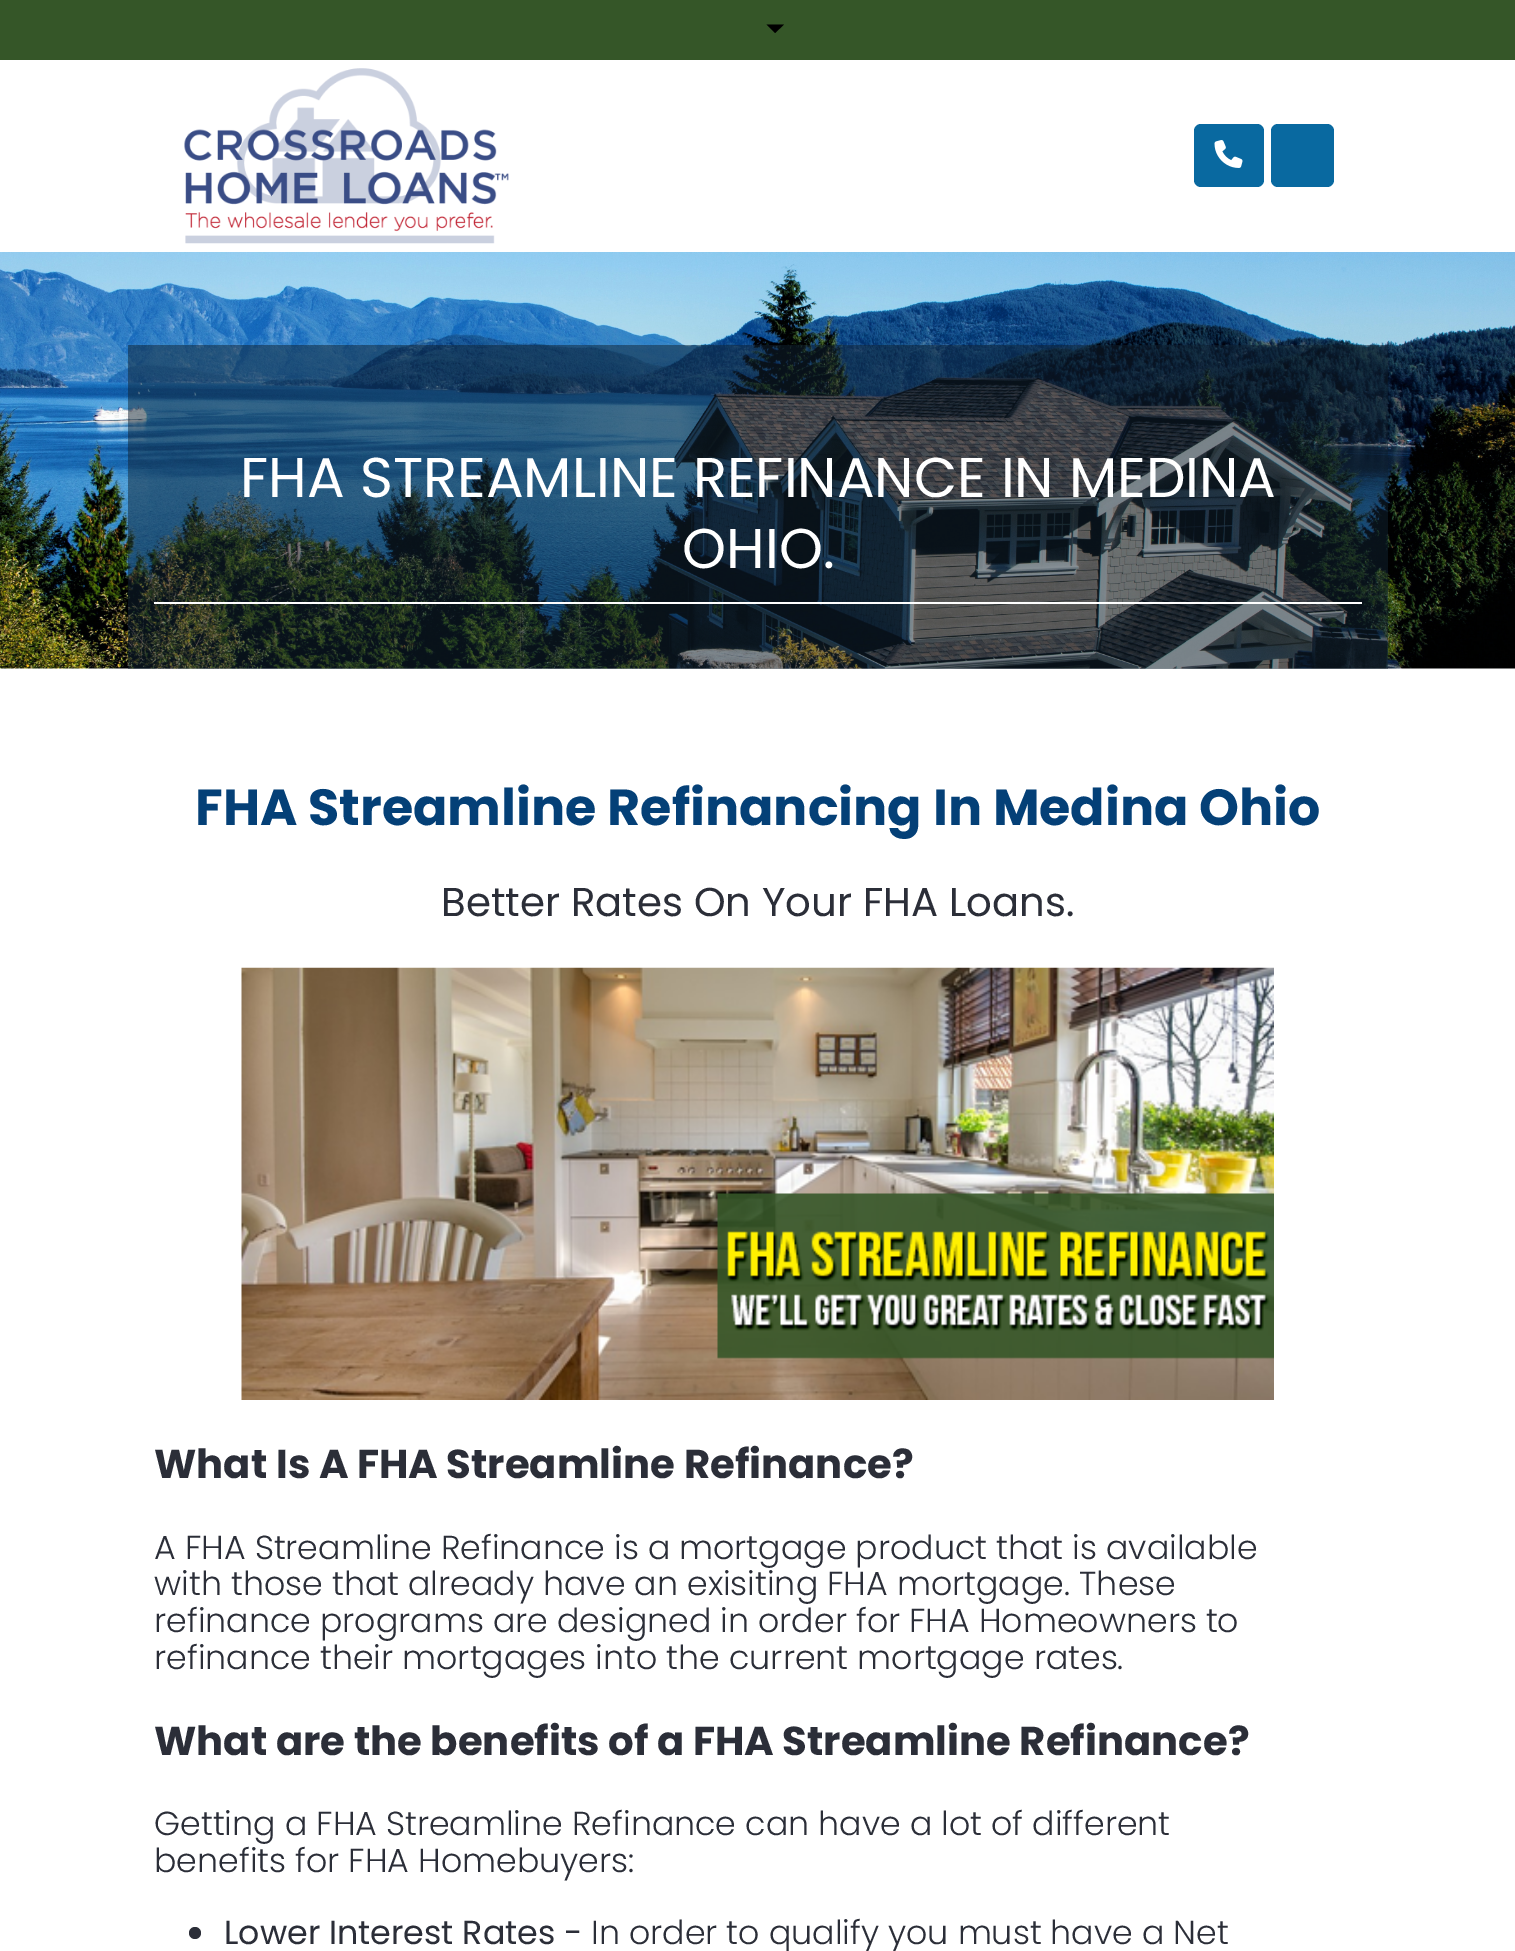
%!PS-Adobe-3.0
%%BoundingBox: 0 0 1515 1951
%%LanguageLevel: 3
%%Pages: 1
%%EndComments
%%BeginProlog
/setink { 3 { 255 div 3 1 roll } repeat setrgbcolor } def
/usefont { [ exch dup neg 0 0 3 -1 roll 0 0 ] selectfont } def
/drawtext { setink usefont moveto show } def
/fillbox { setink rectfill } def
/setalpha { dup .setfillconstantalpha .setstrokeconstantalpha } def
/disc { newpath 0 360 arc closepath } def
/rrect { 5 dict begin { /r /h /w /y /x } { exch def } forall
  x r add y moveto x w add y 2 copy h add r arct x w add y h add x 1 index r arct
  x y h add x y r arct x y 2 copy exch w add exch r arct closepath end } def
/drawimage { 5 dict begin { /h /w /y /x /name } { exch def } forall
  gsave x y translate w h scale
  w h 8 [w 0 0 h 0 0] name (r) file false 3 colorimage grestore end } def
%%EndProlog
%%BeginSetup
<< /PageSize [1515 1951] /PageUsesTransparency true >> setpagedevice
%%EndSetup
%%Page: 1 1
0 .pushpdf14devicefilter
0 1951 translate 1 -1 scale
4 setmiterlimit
0 0 1515 1951 255 255 255 fillbox
0 0 1515 60 53 86 40 fillbox
0 0 0 setink
766.5 24.5 moveto 784 24.5 lineto 775 33 lineto closepath fill
(assets/img1.rgb) 184 68 325 176 drawimage
9 105 160 setink
1194 124 70 63 7 rrect fill
(assets/img2.rgb) 1214 140 29 28 drawimage
1271 124 63 63 7 rrect fill
(assets/img3.rgb) 0 252 1515 417 drawimage
0.5 setalpha
128 345 1260 324 16 34 49 fillbox
1 setalpha
154 602 1208 2 255 255 255 fillbox
(FHA STREAMLINE REFINANCE IN MEDINA) 240 497 /Poppins-Regular 56 255 255 255 drawtext
(OHIO.) 682 568 /Poppins-Regular 56 255 255 255 drawtext
(FHA Streamline Refinancing In Medina Ohio) 195 825 /Poppins-Bold 50.75 4 64 119 drawtext
(Better Rates On Your FHA Loans.) 441 916 /Poppins-Regular 40.25 43 46 56 drawtext
(assets/img4.rgb) 241 967 1033 433 drawimage
(What Is A FHA Streamline Refinance?) 154 1478 /Poppins-Bold 40.25 43 46 56 drawtext
(A FHA Streamline Refinance is a mortgage product that is available) 154 1559 /Poppins-Light 33.25 43 46 56 drawtext
(with those that already have an exisiting FHA mortgage. These) 154 1595 /Poppins-Light 33.25 43 46 56 drawtext
(refinance programs are designed in order for FHA Homeowners to) 154 1632 /Poppins-Light 33.25 43 46 56 drawtext
(refinance their mortgages into the current mortgage rates.) 154 1669 /Poppins-Light 33.25 43 46 56 drawtext
(What are the benefits of a FHA Streamline Refinance?) 154 1755 /Poppins-Bold 40.25 43 46 56 drawtext
(Getting a FHA Streamline Refinance can have a lot of different) 154 1835 /Poppins-Light 33.25 43 46 56 drawtext
(benefits for FHA Homebuyers:) 154 1872 /Poppins-Light 33.25 43 46 56 drawtext
195 1933 6 disc fill
(Lower Interest Rates -) 224 1944 /Poppins-Regular 33.25 43 46 56 drawtext
(In order to qualify you must have a Net) 591 1944 /Poppins-Light 33.25 43 46 56 drawtext
.poppdf14devicefilter showpage
%%EOF
